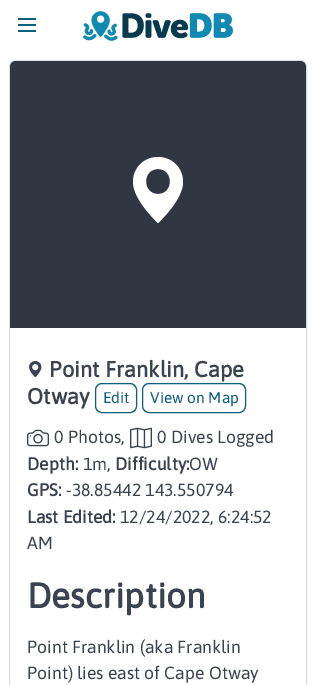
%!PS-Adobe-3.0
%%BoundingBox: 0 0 316 685
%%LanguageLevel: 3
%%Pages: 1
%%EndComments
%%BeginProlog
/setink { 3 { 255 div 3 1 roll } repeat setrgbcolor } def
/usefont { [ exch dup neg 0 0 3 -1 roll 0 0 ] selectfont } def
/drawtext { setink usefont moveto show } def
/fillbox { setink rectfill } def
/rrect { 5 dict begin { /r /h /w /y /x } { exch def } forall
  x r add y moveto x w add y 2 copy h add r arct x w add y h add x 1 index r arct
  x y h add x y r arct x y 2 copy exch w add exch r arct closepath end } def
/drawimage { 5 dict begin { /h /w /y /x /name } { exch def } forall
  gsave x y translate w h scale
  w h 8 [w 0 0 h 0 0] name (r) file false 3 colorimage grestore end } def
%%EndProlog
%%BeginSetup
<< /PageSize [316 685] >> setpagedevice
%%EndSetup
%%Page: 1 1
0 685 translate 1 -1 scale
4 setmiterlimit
0 0 316 685 255 255 255 fillbox
18 30 18 2 14 94 124 fillbox
18 18 18 2 14 94 124 fillbox
18 24 18 2 14 94 124 fillbox
(assets/img1.rgb) 83 11 150 30 drawimage
218 222 228 setink
9.5 60.5 297 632 6.5 rrect stroke
48 55 66 setink
16 61 moveto 300 61 lineto 303.5 61 306 63.5 306 67 curveto 306 328 lineto 10 328 lineto 10 67 lineto 10 63.5 12.5 61 16 61 curveto closepath fill
255 255 255 setink
158 223 moveto 158 223 183 200 183 182 curveto 183 168 172 157 158 157 curveto 144 157 133 168 133 182 curveto 133 200 158 223 158 223 curveto closepath 158 194 moveto 174 194 174 169 158 169 curveto 142 169 142 194 158 194 curveto closepath eofill
(assets/img2.rgb) 29 361 13 16 drawimage
(Point Franklin, Cape) 49 377 /Asap-Bold 22 59 67 81 drawtext
(Otway) 27 404 /Asap-Bold 22 59 67 81 drawtext
14 94 124 setink
95.5 383.5 41 29 6.5 rrect stroke
(Edit) 103 403 /Asap-Regular 15.5 14 94 124 drawtext
142.5 383.5 103 29 6.5 rrect stroke
(View on Map) 150 403 /Asap-Regular 15.5 14 94 124 drawtext
(assets/img3.rgb) 27 429 22 18 drawimage
(0 Photos,) 54 443 /Asap-Regular 17.6 59 67 81 drawtext
(assets/img4.rgb) 130 427 22 22 drawimage
(0 Dives Logged) 157 443 /Asap-Regular 17.6 59 67 81 drawtext
(Depth:) 27 470 /Asap-Bold 17.6 59 67 81 drawtext
(1m,) 83 470 /Asap-Regular 17.6 59 67 81 drawtext
(Difficulty:) 115 470 /Asap-Bold 17.6 59 67 81 drawtext
(OW) 189 470 /Asap-Regular 17.6 59 67 81 drawtext
(GPS:) 27 496 /Asap-Bold 17.6 59 67 81 drawtext
(-38.85442 143.550794) 66 496 /Asap-Regular 17.6 59 67 81 drawtext
(Last Edited:) 27 523 /Asap-Bold 17.6 59 67 81 drawtext
(12/24/2022, 6:24:52) 120 523 /Asap-Regular 17.6 59 67 81 drawtext
(AM) 27 549 /Asap-Regular 17.6 59 67 81 drawtext
(Description) 27 608 /Asap-Bold 35.25 59 67 81 drawtext
(Point Franklin \(aka Franklin) 27 653 /Asap-Regular 17.6 59 67 81 drawtext
(Point\) lies east of Cape Otway) 27 679 /Asap-Regular 17.6 59 67 81 drawtext
showpage
%%EOF
